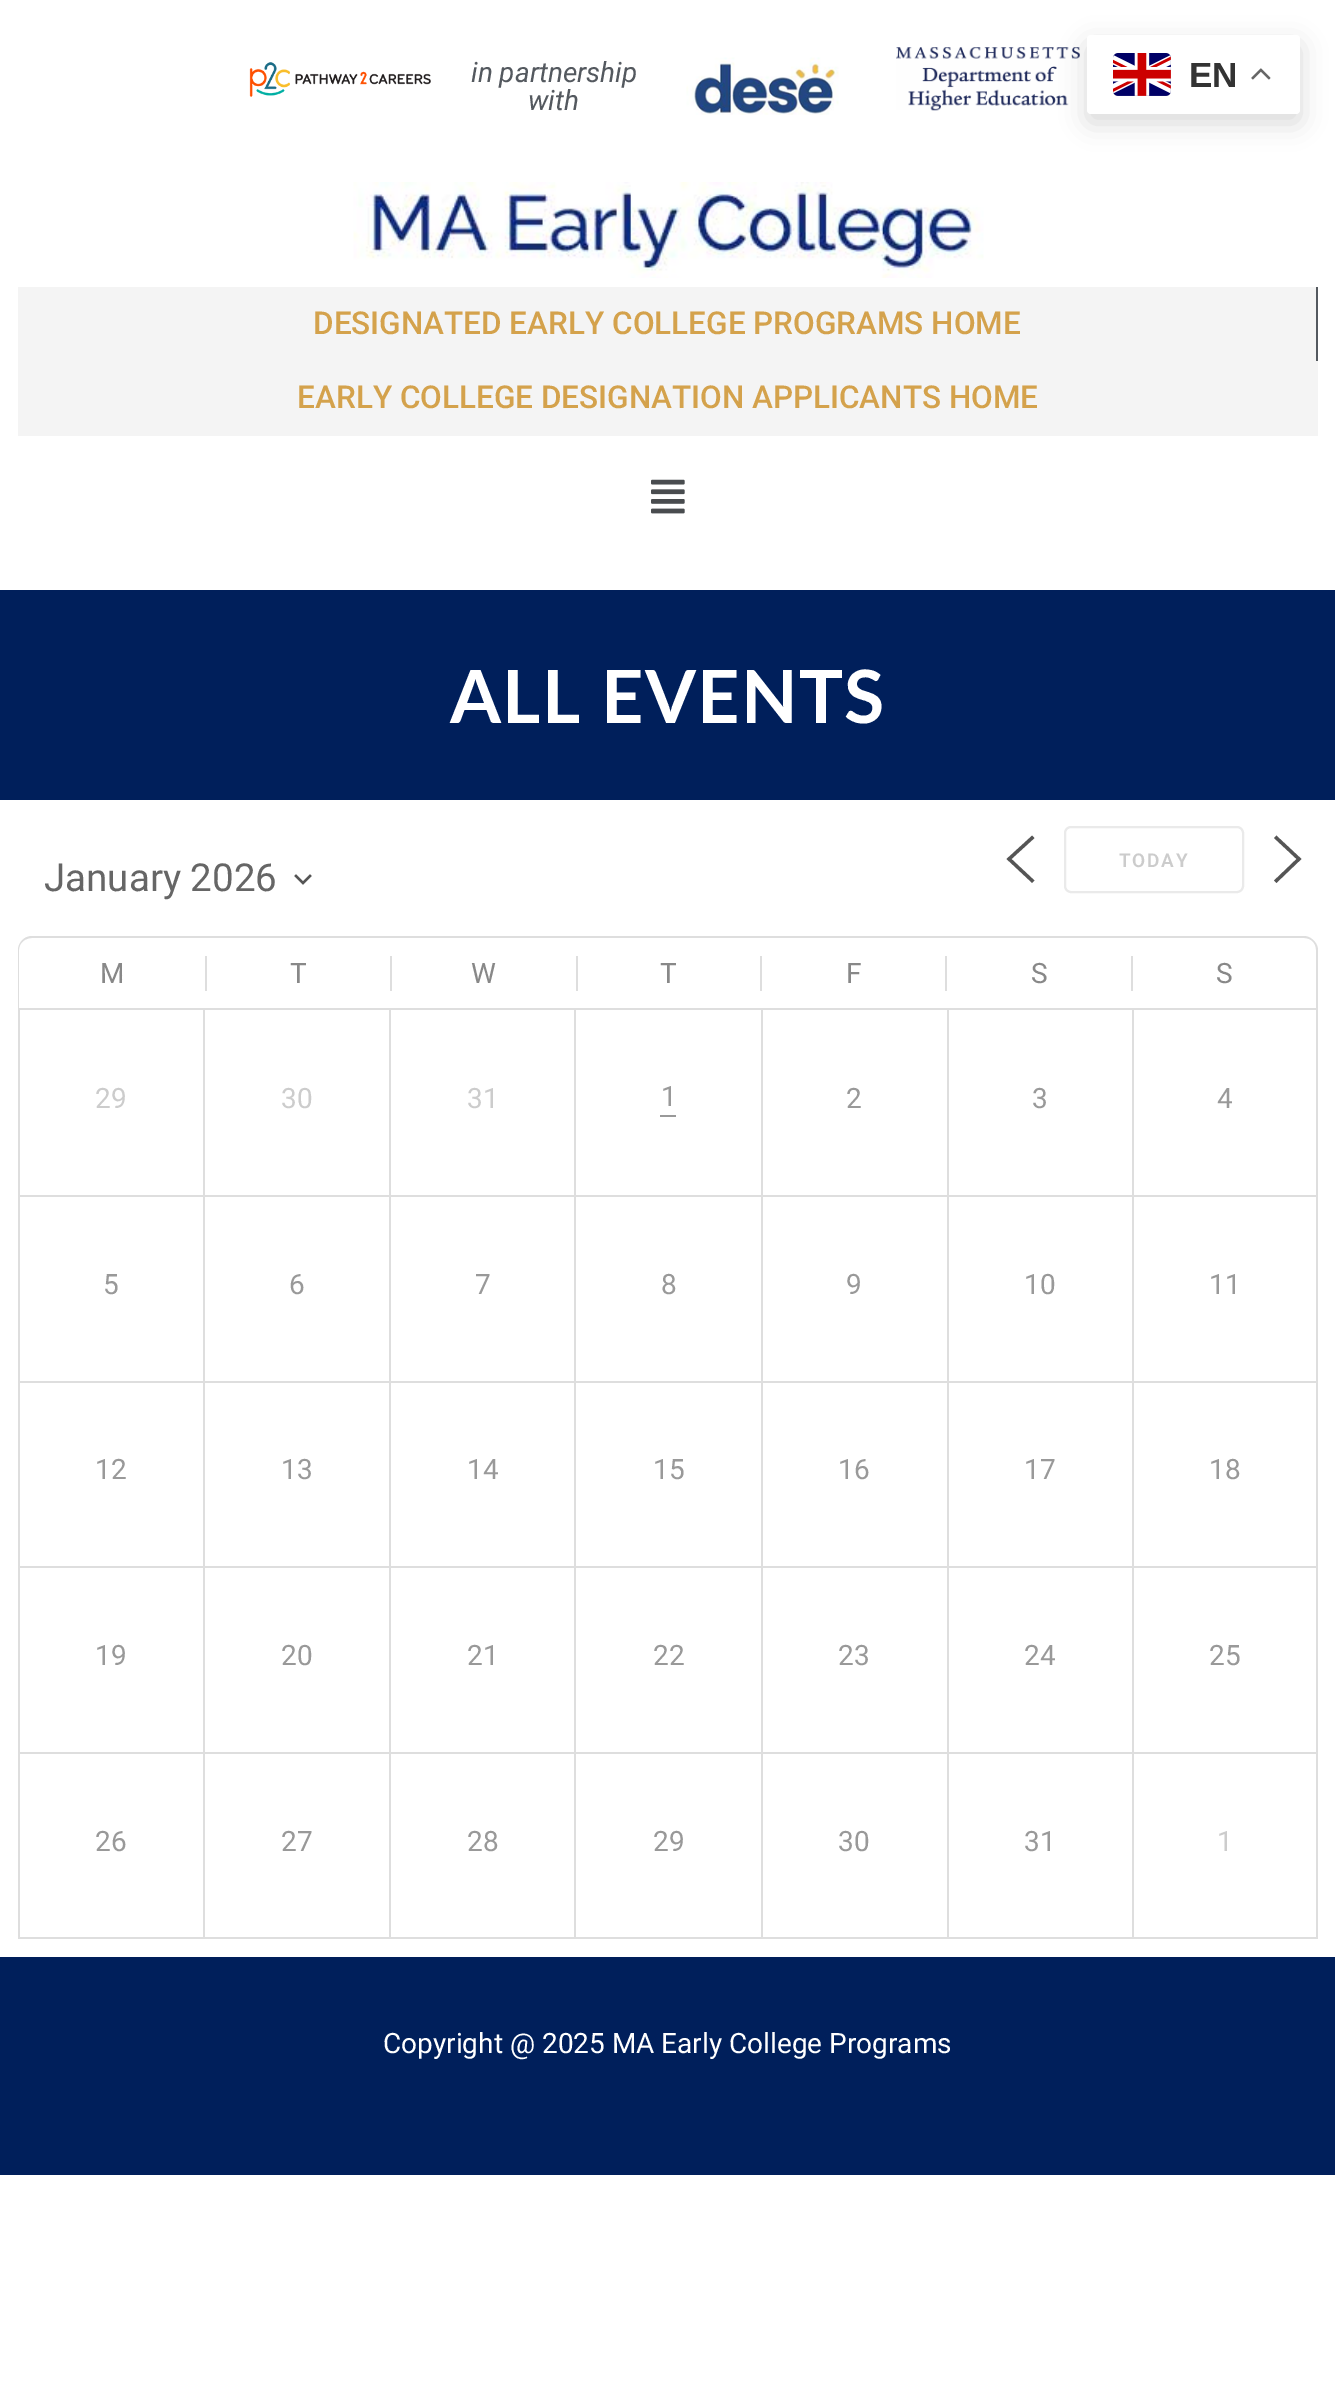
%!PS-Adobe-3.0
%%BoundingBox: 0 0 1335 2406
%%LanguageLevel: 3
%%Pages: 1
%%EndComments
%%BeginProlog
/setink { 3 { 255 div 3 1 roll } repeat setrgbcolor } def
/usefont { [ exch dup neg 0 0 3 -1 roll 0 0 ] selectfont } def
/drawtext { setink usefont moveto show } def
/fillbox { setink rectfill } def
/setalpha { dup .setfillconstantalpha .setstrokeconstantalpha } def
/rrect { 5 dict begin { /r /h /w /y /x } { exch def } forall
  x r add y moveto x w add y 2 copy h add r arct x w add y h add x 1 index r arct
  x y h add x y r arct x y 2 copy exch w add exch r arct closepath end } def
/softshadow { 12 dict begin { /a /b /q /h /w /y /x } { exch def } forall gsave /was 0 def
  9 -2 -9 { dup b mul 4 div /e exch def 1 sub .425 mul 2.718 exch exp 1 add a .99 .min exch div /now exch def
    1 1 now sub 1 was sub div sub setalpha /was now def
    w h .min e 2 mul add 0 gt { x e sub y e sub w e 2 mul add h e 2 mul add
      q e add b .6 mul add w h .min 2 div e add .min 0 .max rrect fill } if } for grestore end } def
/drawimage { 5 dict begin { /h /w /y /x /name } { exch def } forall
  gsave x y translate w h scale
  w h 8 [w 0 0 h 0 0] name (r) file false 3 colorimage grestore end } def
%%EndProlog
%%BeginSetup
<< /PageSize [1335 2406] /PageUsesTransparency true >> setpagedevice
%%EndSetup
%%Page: 1 1
0 .pushpdf14devicefilter
0 2406 translate 1 -1 scale
4 setmiterlimit
0 0 1335 2406 255 255 255 fillbox
(assets/img1.rgb) 249 62 182 35 drawimage
(in partnership) 471 82 /Roboto-Italic 28 84 89 95 drawtext
(with) 528 110 /Roboto-Italic 28 84 89 95 drawtext
(assets/img2.rgb) 686 57 153 58 drawimage
(assets/img3.rgb) 896 47 184 64 drawimage
(assets/img4.rgb) 353 182 631 96 drawimage
18 287 1300 149 244 244 244 fillbox
1316 287 2 74 84 89 95 fillbox
(DESIGNATED EARLY COLLEGE PROGRAMS HOME) 313 334 /Roboto-Medium 31.5 212 162 76 drawtext
(EARLY COLLEGE DESIGNATION APPLICANTS HOME) 297 408 /Roboto-Medium 31.5 212 162 76 drawtext
(assets/img5.rgb) 651 479 34 35 drawimage
0 590 1335 210 0 31 91 fillbox
/Lato-Bold 73.5 usefont
255 255 255 setink
450 723 moveto 1.4 0 (ALL EVENTS) ashow
85 85 85 setink
3.3 setlinewidth
2 setlinecap
1032 880.5 moveto 1009 859 lineto 1032 838 lineto stroke
234 234 234 setink
2 setlinewidth
0 setlinecap
1065 827 178 65 6 rrect stroke
/Roboto-SemiBold 19 usefont
204 204 204 setink
1119 867 moveto 1.75 0 (TODAY) ashow
85 85 85 setink
3.3 setlinewidth
2 setlinecap
1276.5 880.5 moveto 1299 859 lineto 1276.5 838 lineto stroke
2.3 setlinewidth
296 876 moveto 303 883 lineto 310 876 lineto stroke
(January 2026) 44 891 /Roboto-Regular 38.5 102 102 102 drawtext
222 222 222 setink
32 936 moveto 1304 936 lineto 1311 936 1318 943 1318 950 curveto 1318 1008 lineto 18 1008 lineto 18 950 lineto 18 943 24 936 32 936 curveto closepath 32 938 moveto 1304 938 lineto 1311 938 1316 943 1316 950 curveto 1316 1008 lineto 19 1008 lineto 19 950 lineto 19 943 25 938 32 938 curveto closepath eofill
(M) 100 983 /Roboto-Regular 28 136 136 136 drawtext
205 956 2 35 222 222 222 fillbox
(T) 290 983 /Roboto-Regular 28 136 136 136 drawtext
390 956 2 35 222 222 222 fillbox
(W) 471 983 /Roboto-Regular 28 136 136 136 drawtext
576 956 2 35 222 222 222 fillbox
(T) 660 983 /Roboto-Regular 28 136 136 136 drawtext
760 956 2 35 222 222 222 fillbox
(F) 846 983 /Roboto-Regular 28 136 136 136 drawtext
945 956 2 35 222 222 222 fillbox
(S) 1031 983 /Roboto-Regular 28 136 136 136 drawtext
1131 956 2 35 222 222 222 fillbox
(S) 1216 983 /Roboto-Regular 28 136 136 136 drawtext
18 1937 1300 2 222 222 222 fillbox
18 1008 1300 2 222 222 222 fillbox
18 1008 2 187 222 222 222 fillbox
(29) 95 1108 /Roboto-Regular 28 204 204 204 drawtext
203 1008 2 187 222 222 222 fillbox
(30) 281 1108 /Roboto-Regular 28 204 204 204 drawtext
389 1008 2 187 222 222 222 fillbox
(31) 467 1108 /Roboto-Regular 28 204 204 204 drawtext
574 1008 2 187 222 222 222 fillbox
(1) 661 1106 /Roboto-Regular 28 153 153 153 drawtext
660 1115 16 2 153 153 153 fillbox
761 1008 2 187 222 222 222 fillbox
(2) 846 1108 /Roboto-Regular 28 153 153 153 drawtext
947 1008 2 187 222 222 222 fillbox
(3) 1032 1108 /Roboto-Regular 28 153 153 153 drawtext
1316 1008 2 187 222 222 222 fillbox
1132 1008 2 187 222 222 222 fillbox
(4) 1217 1108 /Roboto-Regular 28 153 153 153 drawtext
18 1195 1300 2 222 222 222 fillbox
18 1195 2 186 222 222 222 fillbox
(5) 103 1294 /Roboto-Regular 28 153 153 153 drawtext
203 1195 2 186 222 222 222 fillbox
(6) 289 1294 /Roboto-Regular 28 153 153 153 drawtext
389 1195 2 186 222 222 222 fillbox
(7) 475 1294 /Roboto-Regular 28 153 153 153 drawtext
574 1195 2 186 222 222 222 fillbox
(8) 661 1294 /Roboto-Regular 28 153 153 153 drawtext
761 1195 2 186 222 222 222 fillbox
(9) 846 1294 /Roboto-Regular 28 153 153 153 drawtext
947 1195 2 186 222 222 222 fillbox
(10) 1024 1294 /Roboto-Regular 28 153 153 153 drawtext
1316 1195 2 186 222 222 222 fillbox
1132 1195 2 186 222 222 222 fillbox
(11) 1209 1294 /Roboto-Regular 28 153 153 153 drawtext
18 1381 1300 2 222 222 222 fillbox
18 1381 2 185 222 222 222 fillbox
(12) 95 1479 /Roboto-Regular 28 153 153 153 drawtext
203 1381 2 185 222 222 222 fillbox
(13) 281 1479 /Roboto-Regular 28 153 153 153 drawtext
389 1381 2 185 222 222 222 fillbox
(14) 467 1479 /Roboto-Regular 28 153 153 153 drawtext
574 1381 2 185 222 222 222 fillbox
(15) 653 1479 /Roboto-Regular 28 153 153 153 drawtext
761 1381 2 185 222 222 222 fillbox
(16) 838 1479 /Roboto-Regular 28 153 153 153 drawtext
947 1381 2 185 222 222 222 fillbox
(17) 1024 1479 /Roboto-Regular 28 153 153 153 drawtext
1316 1381 2 185 222 222 222 fillbox
1132 1381 2 185 222 222 222 fillbox
(18) 1209 1479 /Roboto-Regular 28 153 153 153 drawtext
18 1566 1300 2 222 222 222 fillbox
18 1566 2 186 222 222 222 fillbox
(19) 95 1665 /Roboto-Regular 28 153 153 153 drawtext
203 1566 2 186 222 222 222 fillbox
(20) 281 1665 /Roboto-Regular 28 153 153 153 drawtext
389 1566 2 186 222 222 222 fillbox
(21) 467 1665 /Roboto-Regular 28 153 153 153 drawtext
574 1566 2 186 222 222 222 fillbox
(22) 653 1665 /Roboto-Regular 28 153 153 153 drawtext
761 1566 2 186 222 222 222 fillbox
(23) 838 1665 /Roboto-Regular 28 153 153 153 drawtext
947 1566 2 186 222 222 222 fillbox
(24) 1024 1665 /Roboto-Regular 28 153 153 153 drawtext
1316 1566 2 186 222 222 222 fillbox
1132 1566 2 186 222 222 222 fillbox
(25) 1209 1665 /Roboto-Regular 28 153 153 153 drawtext
18 1752 1300 2 222 222 222 fillbox
18 1752 2 185 222 222 222 fillbox
(26) 95 1851 /Roboto-Regular 28 153 153 153 drawtext
203 1752 2 185 222 222 222 fillbox
(27) 281 1851 /Roboto-Regular 28 153 153 153 drawtext
389 1752 2 185 222 222 222 fillbox
(28) 467 1851 /Roboto-Regular 28 153 153 153 drawtext
574 1752 2 185 222 222 222 fillbox
(29) 653 1851 /Roboto-Regular 28 153 153 153 drawtext
761 1752 2 185 222 222 222 fillbox
(30) 838 1851 /Roboto-Regular 28 153 153 153 drawtext
947 1752 2 185 222 222 222 fillbox
(31) 1024 1851 /Roboto-Regular 28 153 153 153 drawtext
1316 1752 2 185 222 222 222 fillbox
1132 1752 2 185 222 222 222 fillbox
(1) 1217 1851 /Roboto-Regular 28 204 204 204 drawtext
0 1957 1335 218 0 31 91 fillbox
(Copyright @ 2025 MA Early College Programs) 383 2053 /Roboto-Regular 28 255 255 255 drawtext
0 0 0 setink
1087 44 213 79 4 13 0.15 softshadow
255 255 255 setink
1087 35 213 79 4 rrect fill
(assets/img6.rgb) 1113 53 58 43 drawimage
(EN) 1189 87 /LiberationSans-Bold 35 51 51 51 drawtext
(assets/img7.rgb) 1251 68 20 12 drawimage
.poppdf14devicefilter showpage
%%EOF
